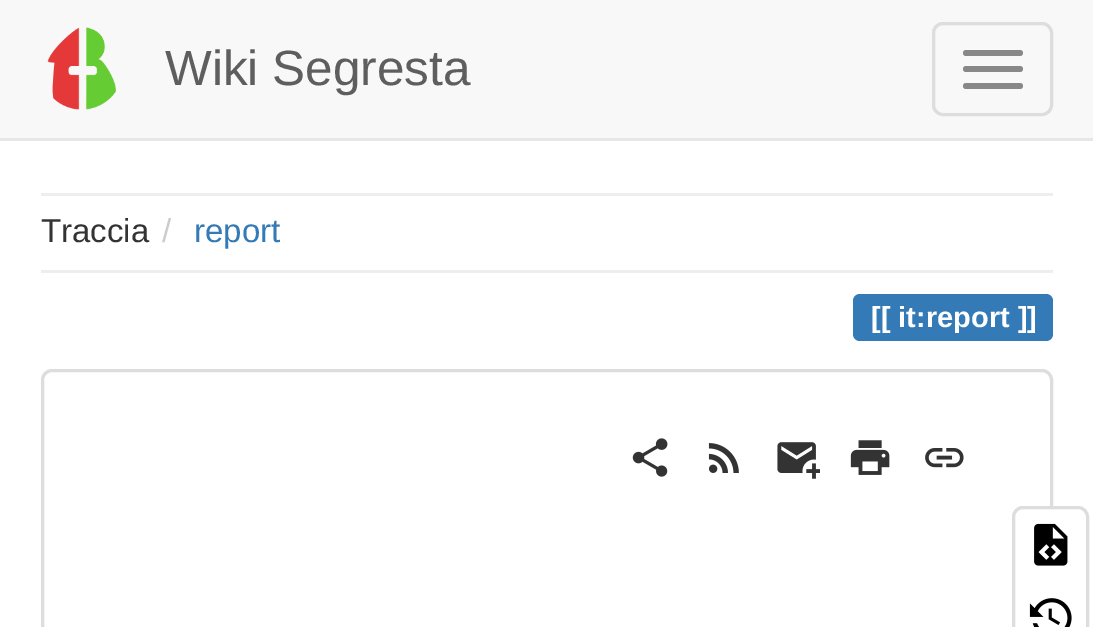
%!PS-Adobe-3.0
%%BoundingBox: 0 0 1093 627
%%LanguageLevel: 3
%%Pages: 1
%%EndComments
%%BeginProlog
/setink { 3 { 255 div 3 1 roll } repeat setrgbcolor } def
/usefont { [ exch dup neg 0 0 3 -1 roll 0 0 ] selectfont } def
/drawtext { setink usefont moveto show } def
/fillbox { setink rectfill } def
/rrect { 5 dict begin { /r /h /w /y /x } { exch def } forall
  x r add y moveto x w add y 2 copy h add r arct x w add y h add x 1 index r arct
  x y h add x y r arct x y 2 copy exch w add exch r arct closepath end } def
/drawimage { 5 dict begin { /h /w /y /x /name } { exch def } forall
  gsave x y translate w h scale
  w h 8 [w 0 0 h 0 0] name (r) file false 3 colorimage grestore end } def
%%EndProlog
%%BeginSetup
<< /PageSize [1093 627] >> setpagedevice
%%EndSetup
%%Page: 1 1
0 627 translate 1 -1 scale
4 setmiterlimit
0 0 1093 627 255 255 255 fillbox
0 0 1093 138 248 248 248 fillbox
0 138 1093 3 231 231 231 fillbox
(assets/img1.rgb) 47 27 69 83 drawimage
(Wiki Segresta) 165 85 /LiberationSans-Regular 49.5 94 94 94 drawtext
221 221 221 setink
3 setlinewidth
933.5 23.5 118 91 9.5 rrect stroke
136 136 136 setink
963 50 60 6 3 rrect fill
963 66 60 6 3 rrect fill
963 83 60 6 3 rrect fill
41 193 1012 3 238 238 238 fillbox
(Traccia) 41 242 /LiberationSans-Regular 33 51 51 51 drawtext
(/) 162 242 /LiberationSans-Regular 33 204 204 204 drawtext
(report) 194 242 /LiberationSans-Regular 33 51 122 183 drawtext
41 270 1012 3 238 238 238 fillbox
51 122 183 setink
860 294 moveto 899 294 lineto 899 341 lineto 860 341 lineto 856 341 853 338 853 334 curveto 853 301 lineto 853 297 856 294 860 294 curveto closepath fill
899 294 110 47 51 122 183 fillbox
1009 294 moveto 1046 294 lineto 1050 294 1053 297 1053 301 curveto 1053 334 lineto 1053 338 1050 341 1046 341 curveto 1009 341 lineto closepath fill
([[ it:report ]]) 871 327 /LiberationSans-Bold 29 255 255 255 drawtext
221 221 221 setink
42.5 370.5 1009 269 9.5 rrect stroke
(assets/img2.rgb) 632 438 36 39 drawimage
(assets/img3.rgb) 708 443 31 30 drawimage
(assets/img4.rgb) 777 442 43 37 drawimage
(assets/img5.rgb) 850 440 40 35 drawimage
(assets/img6.rgb) 925 448 39 20 drawimage
255 255 255 setink
1013.5 507.5 74 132 9.5 rrect gsave fill grestore
221 221 221 setink
stroke
(assets/img7.rgb) 1034 523 34 43 drawimage
(assets/img8.rgb) 1029 598 43 29 drawimage
showpage
%%EOF
